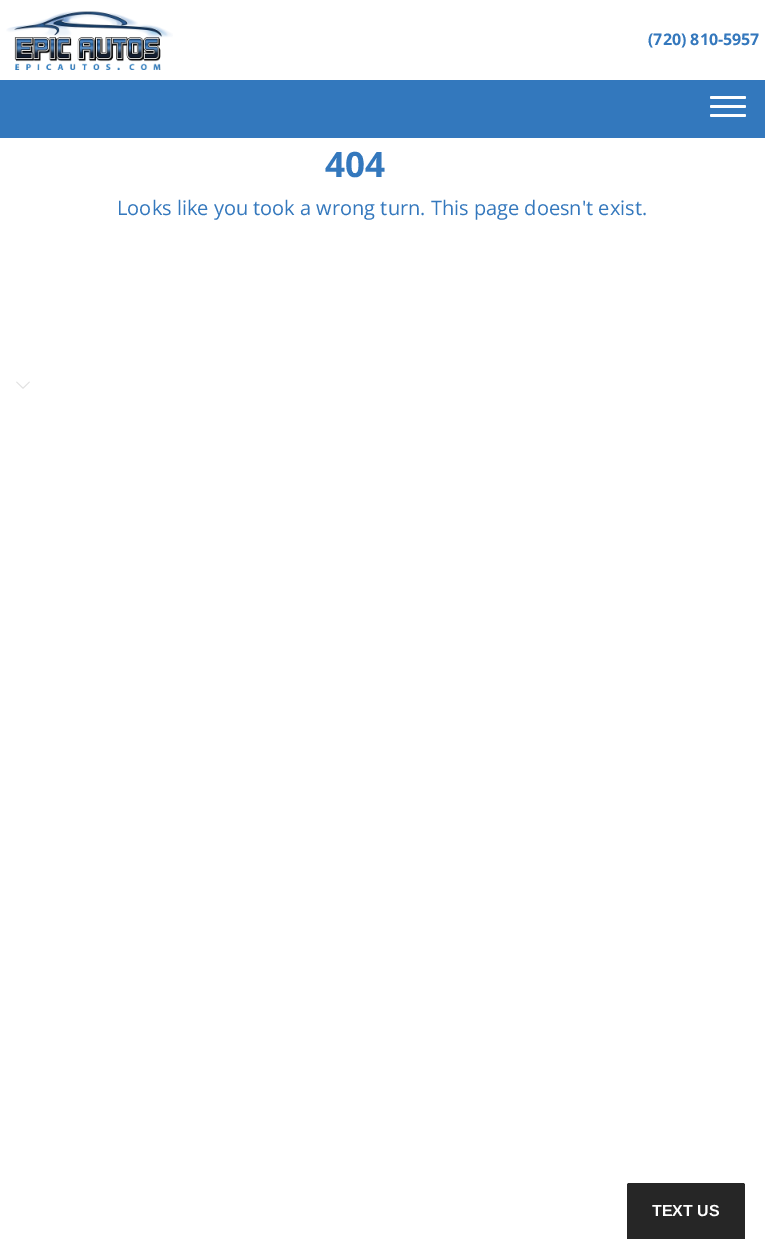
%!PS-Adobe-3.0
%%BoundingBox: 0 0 765 1239
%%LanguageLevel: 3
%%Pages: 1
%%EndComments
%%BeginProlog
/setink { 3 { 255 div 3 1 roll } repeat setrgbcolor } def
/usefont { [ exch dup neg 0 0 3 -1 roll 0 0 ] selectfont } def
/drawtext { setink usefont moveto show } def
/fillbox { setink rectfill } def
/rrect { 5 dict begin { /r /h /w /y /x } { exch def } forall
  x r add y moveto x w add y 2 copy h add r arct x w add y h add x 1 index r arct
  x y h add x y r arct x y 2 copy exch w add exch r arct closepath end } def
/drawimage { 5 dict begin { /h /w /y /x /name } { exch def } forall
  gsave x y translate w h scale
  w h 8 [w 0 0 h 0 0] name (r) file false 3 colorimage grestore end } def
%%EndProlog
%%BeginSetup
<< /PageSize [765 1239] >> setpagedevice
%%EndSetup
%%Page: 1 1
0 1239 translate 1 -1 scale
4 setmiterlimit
0 0 765 1239 255 255 255 fillbox
(assets/img1.rgb) 6 11 167 59 drawimage
(\(720\) 810-5957) 648 45 /OpenSans-Bold 16 52 120 189 drawtext
0 80 765 56 51 120 189 fillbox
255 255 255 setink
710 105 36 3 1.5 rrect fill
710 96 36 3 1.5 rrect fill
710 114 36 3 1.5 rrect fill
0 136 765 2 52 120 189 fillbox
(404) 325 177 /OpenSans-Bold 35 52 120 189 drawtext
(Looks like you took a wrong turn. This page doesn't exist.) 117 215 /OpenSans-Regular 20 52 120 189 drawtext
(assets/img2.rgb) 16 381 14 8 drawimage
38 38 38 setink
629 1183 moveto 743 1183 lineto 744 1183 745 1184 745 1185 curveto 745 1239 lineto 627 1239 lineto 627 1185 lineto 627 1184 628 1183 629 1183 curveto closepath fill
(TEXT US) 652 1216 /LiberationSans-Bold 16 255 255 255 drawtext
showpage
%%EOF
